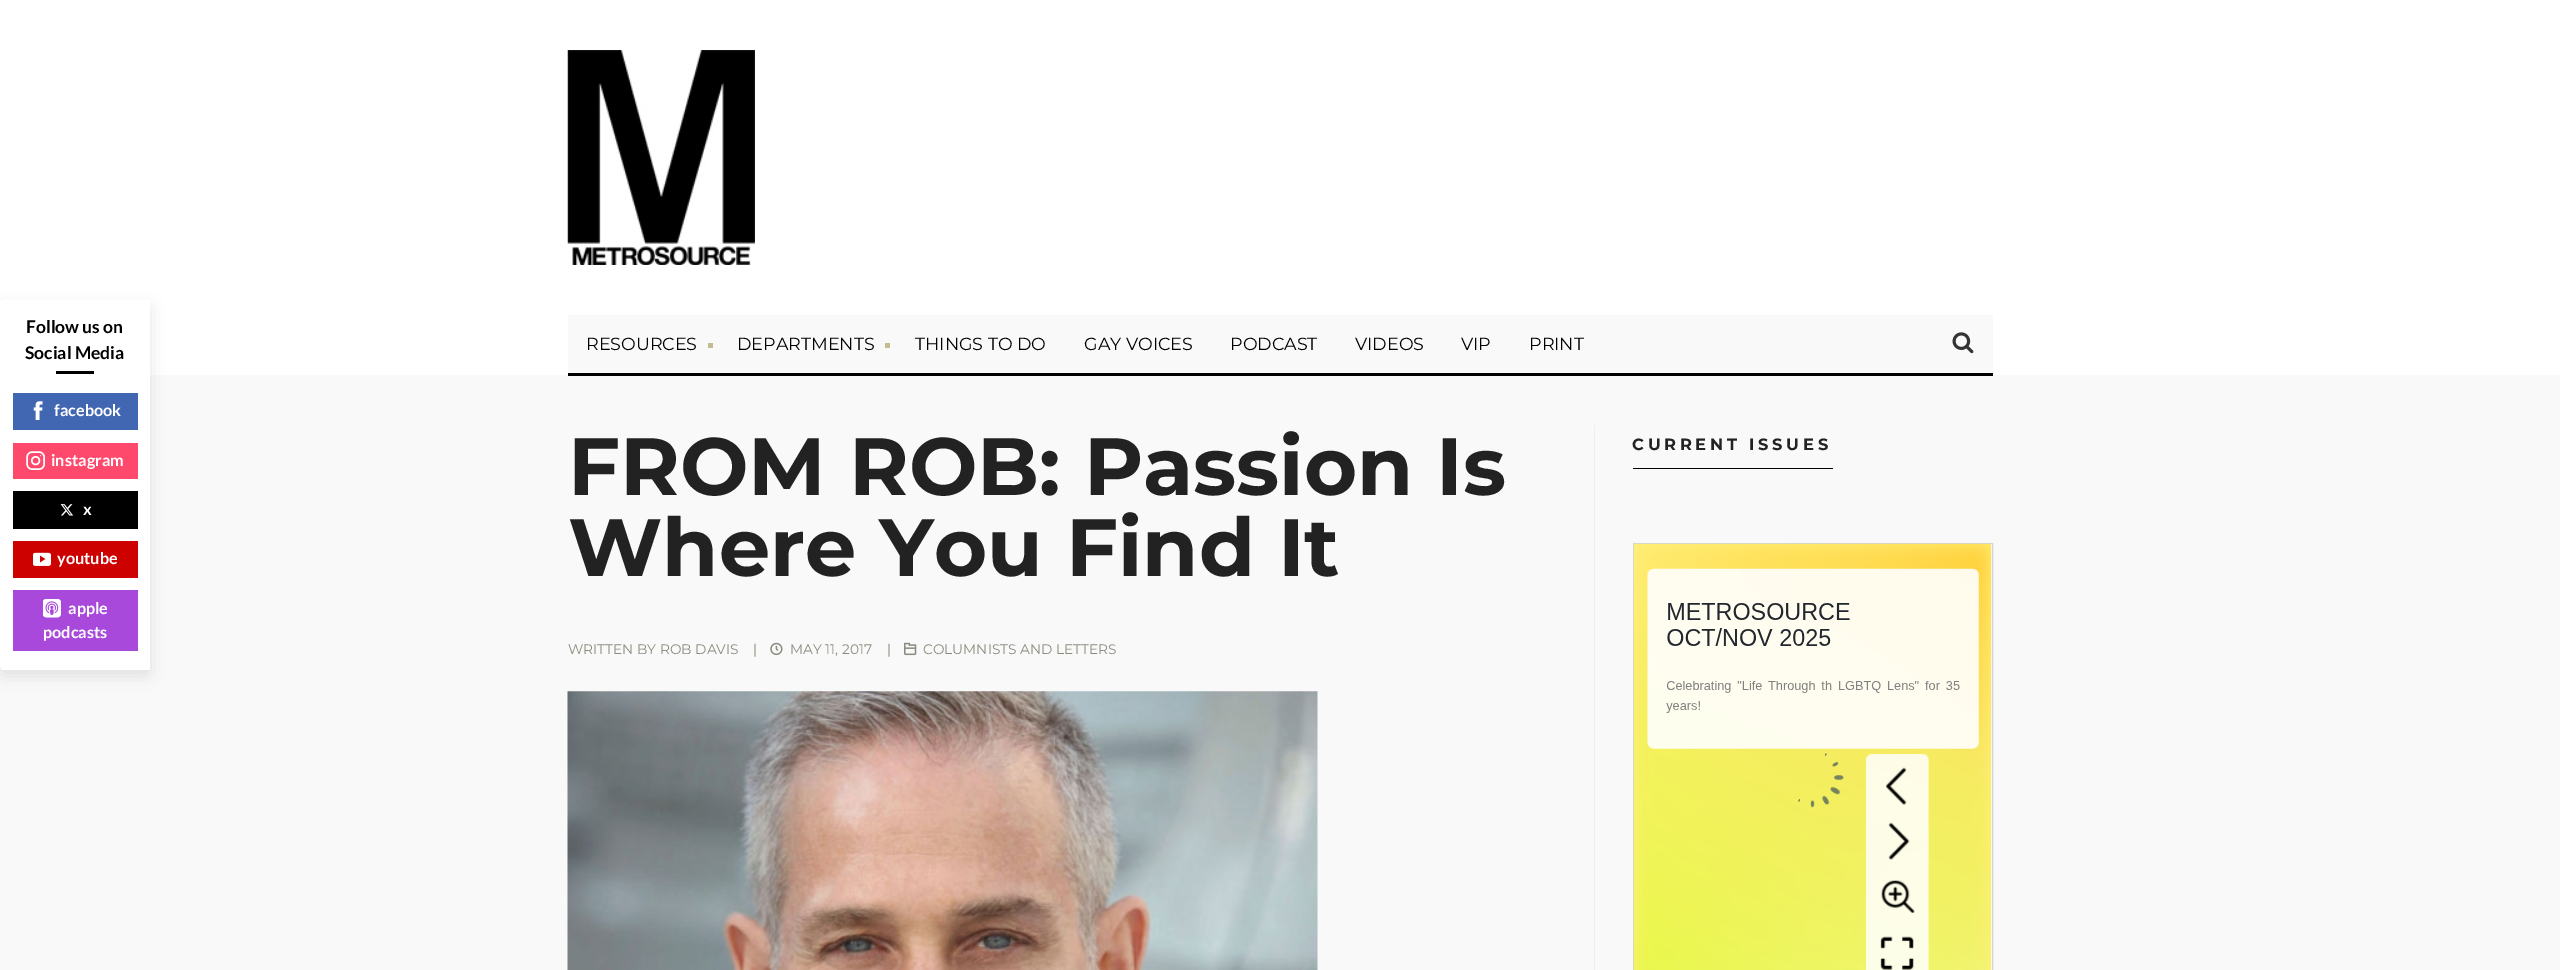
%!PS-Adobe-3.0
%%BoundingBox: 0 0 2560 970
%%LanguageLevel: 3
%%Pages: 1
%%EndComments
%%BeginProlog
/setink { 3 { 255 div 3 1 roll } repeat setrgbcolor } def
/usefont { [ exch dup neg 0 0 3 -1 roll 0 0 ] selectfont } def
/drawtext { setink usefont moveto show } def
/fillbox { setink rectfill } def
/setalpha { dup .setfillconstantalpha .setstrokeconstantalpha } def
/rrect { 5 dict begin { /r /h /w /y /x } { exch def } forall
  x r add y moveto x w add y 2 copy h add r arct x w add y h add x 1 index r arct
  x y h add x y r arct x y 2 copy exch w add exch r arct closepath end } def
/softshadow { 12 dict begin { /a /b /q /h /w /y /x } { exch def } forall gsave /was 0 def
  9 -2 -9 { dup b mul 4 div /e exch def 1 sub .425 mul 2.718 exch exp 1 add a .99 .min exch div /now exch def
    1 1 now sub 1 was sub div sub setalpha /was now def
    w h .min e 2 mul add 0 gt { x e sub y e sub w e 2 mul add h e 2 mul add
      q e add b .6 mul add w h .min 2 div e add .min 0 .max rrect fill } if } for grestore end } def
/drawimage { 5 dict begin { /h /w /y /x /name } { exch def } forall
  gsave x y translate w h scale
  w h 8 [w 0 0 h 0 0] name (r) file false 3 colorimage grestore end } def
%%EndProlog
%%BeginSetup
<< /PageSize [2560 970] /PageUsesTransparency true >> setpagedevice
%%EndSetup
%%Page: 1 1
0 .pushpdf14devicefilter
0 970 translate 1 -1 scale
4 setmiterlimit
0 0 2560 970 249 249 249 fillbox
0 0 2560 375 255 255 255 fillbox
0 0 0 setink
0 306 150 370 4 8 0.1 softshadow
255 255 255 setink
4 300 moveto 150 300 lineto 150 670 lineto 4 670 lineto 2 670 0 668 0 666 curveto 0 304 lineto 0 302 2 300 4 300 curveto closepath fill
(Follow us on) 26 333 /Lato-Bold 17.5 0 0 0 drawtext
(Social Media) 25 359 /Lato-Bold 17.5 0 0 0 drawtext
56 371 38 3 0 0 0 fillbox
13 393 125 37 66 103 178 fillbox
(assets/img1.rgb) 33 401 10 19 drawimage
(facebook) 54 416 /Lato-Bold 16.25 255 255 255 drawtext
13 443 125 36 255 73 108 fillbox
(assets/img2.rgb) 26 451 19 19 drawimage
(instagram) 51 466 /Lato-Bold 16.25 255 255 255 drawtext
13 491 125 38 0 0 0 fillbox
(assets/img3.rgb) 60 504 14 12 drawimage
(x) 83 515 /Lato-Bold 16.25 255 255 255 drawtext
13 541 125 37 204 1 0 fillbox
(assets/img4.rgb) 33 552 18 14 drawimage
(youtube) 57 564 /Lato-Bold 16.25 255 255 255 drawtext
13 590 125 61 168 73 220 fillbox
(assets/img5.rgb) 43 599 18 19 drawimage
(apple) 68 614 /Lato-Bold 16.25 255 255 255 drawtext
(podcasts) 43 638 /Lato-Bold 16.25 255 255 255 drawtext
(assets/img6.rgb) 567 50 188 215 drawimage
568 373 1425 3 0 0 0 fillbox
568 315 1425 58 249 249 249 fillbox
(RESOURCES) 586 350 /Montserrat-Regular 17.5 0 0 0 drawtext
708 343 5 5 193 189 145 fillbox
(DEPARTMENTS) 737 350 /Montserrat-Regular 17.5 0 0 0 drawtext
885 343 5 5 193 189 145 fillbox
(THINGS TO DO) 915 350 /Montserrat-Regular 17.5 0 0 0 drawtext
(GAY VOICES) 1084 350 /Montserrat-Regular 17.5 0 0 0 drawtext
(PODCAST) 1230 350 /Montserrat-Regular 17.5 0 0 0 drawtext
(VIDEOS) 1355 350 /Montserrat-Regular 17.5 0 0 0 drawtext
(VIP) 1461 350 /Montserrat-Regular 17.5 0 0 0 drawtext
(PRINT) 1529 350 /Montserrat-Regular 17.5 0 0 0 drawtext
(assets/img7.rgb) 1952 332 22 22 drawimage
(FROM ROB: Passion Is) 568 495 /Montserrat-Bold 81.25 34 34 34 drawtext
(Where You Find It) 568 576 /Montserrat-Bold 81.25 34 34 34 drawtext
(WRITTEN BY ROB DAVIS) 568 654 /Montserrat-Regular 13.75 140 139 126 drawtext
(|) 753 654 /Montserrat-Regular 13.75 140 139 126 drawtext
(assets/img8.rgb) 770 642 13 14 drawimage
(MAY 11, 2017) 790 654 /Montserrat-Regular 13.75 140 139 126 drawtext
(|) 887 654 /Montserrat-Regular 13.75 140 139 126 drawtext
(assets/img9.rgb) 904 642 13 14 drawimage
(COLUMNISTS AND LETTERS) 923 654 /Montserrat-Regular 13.75 140 139 126 drawtext
(assets/img10.rgb) 567 691 751 279 drawimage
1594 425 1 545 239 239 239 fillbox
1633 468 200 1 0 0 0 fillbox
/Montserrat-Bold 16.25 usefont
34 34 34 setink
1632 450 moveto 3.75 0 (CURRENT ISSUES) ashow
211 211 211 setink
1633.5 543.5 359 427 rectstroke
(assets/img11.rgb) 1633 543 359 427 drawimage
.poppdf14devicefilter showpage
%%EOF
